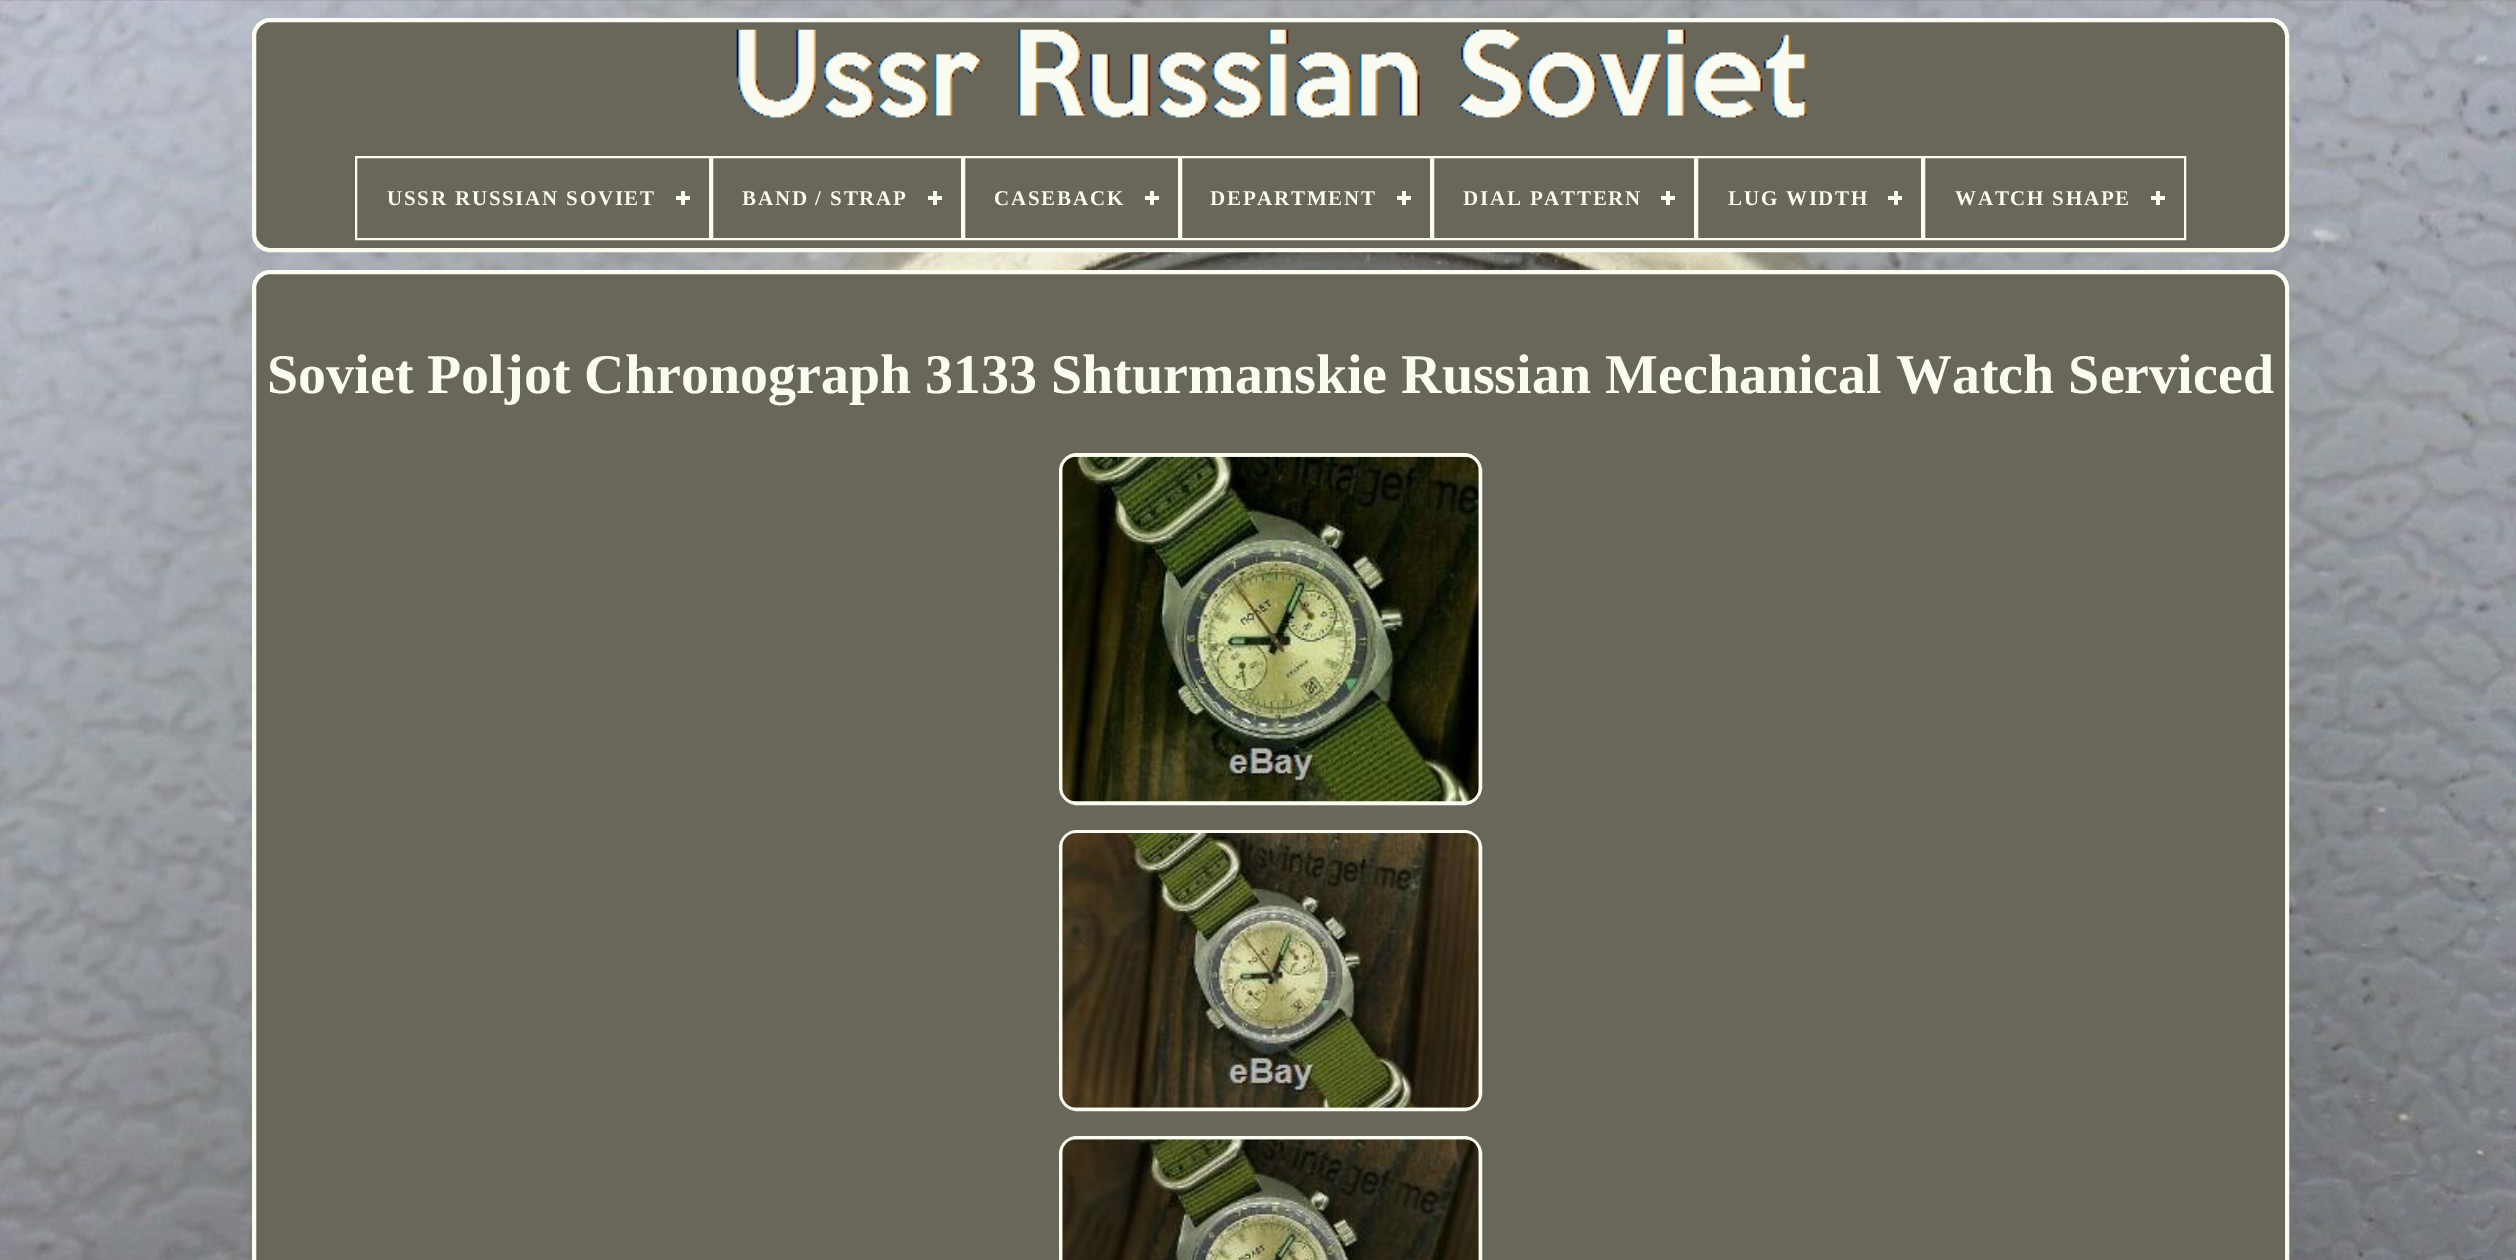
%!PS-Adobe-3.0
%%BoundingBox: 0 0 2516 1260
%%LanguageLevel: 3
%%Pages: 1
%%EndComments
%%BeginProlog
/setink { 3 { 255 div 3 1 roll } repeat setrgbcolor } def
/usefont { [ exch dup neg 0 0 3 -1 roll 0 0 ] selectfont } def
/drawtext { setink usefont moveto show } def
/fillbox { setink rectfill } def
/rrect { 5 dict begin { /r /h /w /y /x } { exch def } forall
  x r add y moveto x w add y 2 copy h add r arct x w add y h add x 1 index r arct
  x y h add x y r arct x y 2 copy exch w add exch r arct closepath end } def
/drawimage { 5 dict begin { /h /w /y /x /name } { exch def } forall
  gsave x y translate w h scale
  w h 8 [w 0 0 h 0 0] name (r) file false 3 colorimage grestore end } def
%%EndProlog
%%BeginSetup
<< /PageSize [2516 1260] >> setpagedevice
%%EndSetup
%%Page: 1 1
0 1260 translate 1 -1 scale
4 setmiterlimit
0 0 2516 1260 255 255 255 fillbox
(assets/img1.rgb) 0 0 2516 1260 drawimage
105 103 90 setink
254 20 2033 230 16 rrect gsave fill grestore
250 252 241 setink
4 setlinewidth
stroke
(assets/img2.rgb) 736 29 1071 89 drawimage
2 setlinewidth
356 157 354 82 rectstroke
/LiberationSerif-Bold 21 usefont
387 205 moveto 1.75 0 (USSR RUSSIAN SOVIET) ashow
681 191 4 14 250 252 241 fillbox
676 196 14 4 250 252 241 fillbox
712 157 250 82 rectstroke
742 205 moveto 1.75 0 (BAND / STRAP) ashow
933 191 4 14 250 252 241 fillbox
928 196 14 4 250 252 241 fillbox
964 157 215 82 rectstroke
994 205 moveto 1.75 0 (CASEBACK) ashow
1150 191 4 14 250 252 241 fillbox
1145 196 14 4 250 252 241 fillbox
1181 157 250 82 rectstroke
1210 205 moveto 1.75 0 (DEPARTMENT) ashow
1402 191 4 14 250 252 241 fillbox
1397 196 14 4 250 252 241 fillbox
1433 157 262 82 rectstroke
1463 205 moveto 1.75 0 (DIAL PATTERN) ashow
1666 191 4 14 250 252 241 fillbox
1661 196 14 4 250 252 241 fillbox
1697 157 225 82 rectstroke
1728 205 moveto 1.75 0 (LUG WIDTH) ashow
1894 191 4 14 250 252 241 fillbox
1888 196 14 4 250 252 241 fillbox
1924 157 261 82 rectstroke
1955 205 moveto 1.75 0 (WATCH SHAPE) ashow
2156 191 4 14 250 252 241 fillbox
2151 196 14 4 250 252 241 fillbox
105 103 90 setink
254 272 2033 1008 16 rrect gsave fill grestore
250 252 241 setink
4 setlinewidth
stroke
(Soviet Poljot Chronograph 3133 Shturmanskie Russian Mechanical Watch Serviced) 267 393 /LiberationSerif-Bold 56 250 252 241 drawtext
1061 455 419 348 16 rrect stroke
(assets/img3.rgb) 1062 456 417 346 drawimage
1061 832 419 277 16 rrect stroke
(assets/img4.rgb) 1062 833 417 275 drawimage
1061 1138 419 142 16 rrect stroke
(assets/img5.rgb) 1062 1139 417 121 drawimage
showpage
%%EOF
